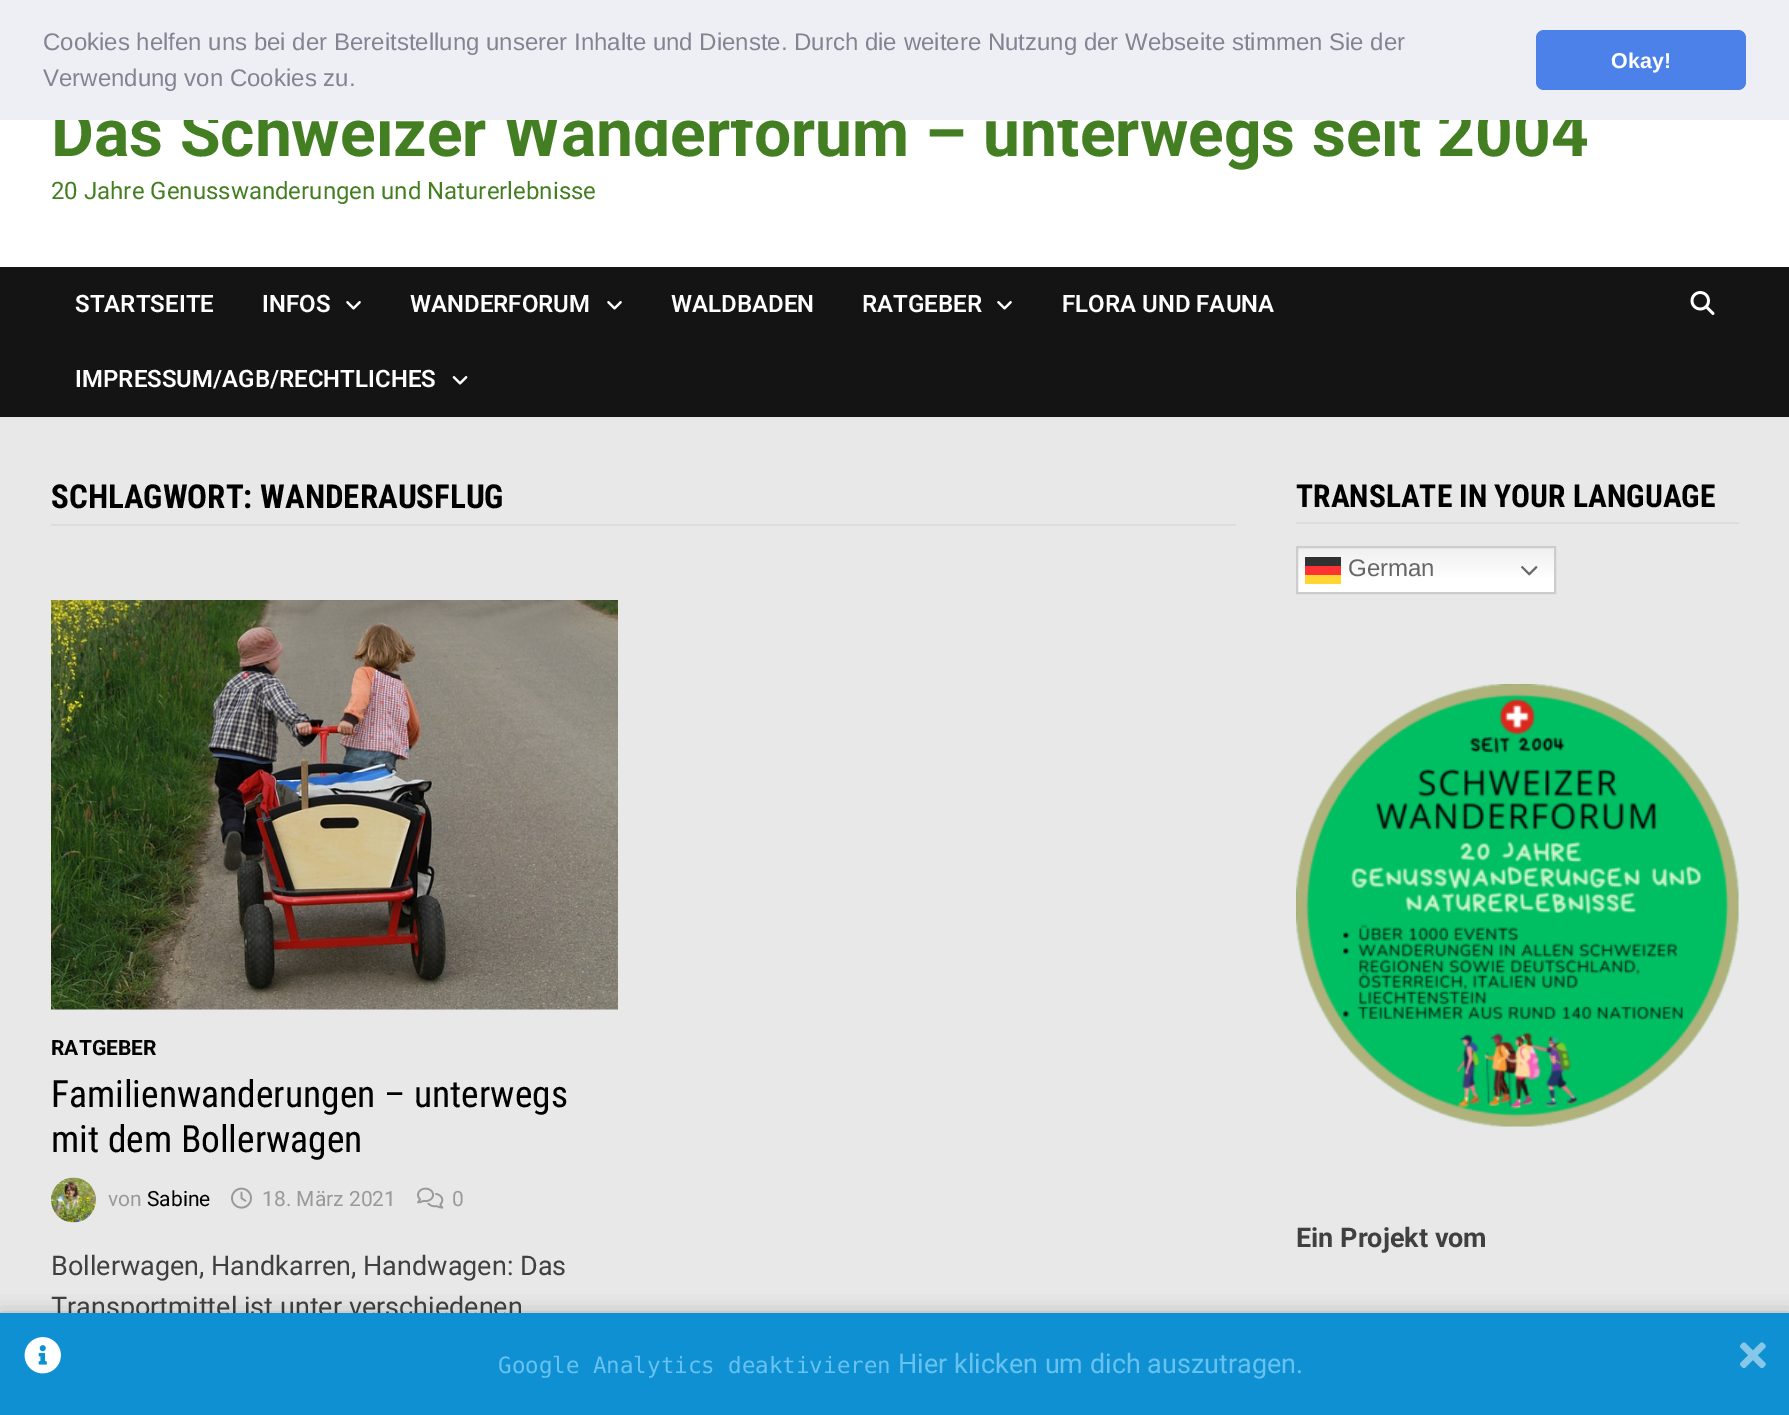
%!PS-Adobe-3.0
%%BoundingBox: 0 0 1789 1415
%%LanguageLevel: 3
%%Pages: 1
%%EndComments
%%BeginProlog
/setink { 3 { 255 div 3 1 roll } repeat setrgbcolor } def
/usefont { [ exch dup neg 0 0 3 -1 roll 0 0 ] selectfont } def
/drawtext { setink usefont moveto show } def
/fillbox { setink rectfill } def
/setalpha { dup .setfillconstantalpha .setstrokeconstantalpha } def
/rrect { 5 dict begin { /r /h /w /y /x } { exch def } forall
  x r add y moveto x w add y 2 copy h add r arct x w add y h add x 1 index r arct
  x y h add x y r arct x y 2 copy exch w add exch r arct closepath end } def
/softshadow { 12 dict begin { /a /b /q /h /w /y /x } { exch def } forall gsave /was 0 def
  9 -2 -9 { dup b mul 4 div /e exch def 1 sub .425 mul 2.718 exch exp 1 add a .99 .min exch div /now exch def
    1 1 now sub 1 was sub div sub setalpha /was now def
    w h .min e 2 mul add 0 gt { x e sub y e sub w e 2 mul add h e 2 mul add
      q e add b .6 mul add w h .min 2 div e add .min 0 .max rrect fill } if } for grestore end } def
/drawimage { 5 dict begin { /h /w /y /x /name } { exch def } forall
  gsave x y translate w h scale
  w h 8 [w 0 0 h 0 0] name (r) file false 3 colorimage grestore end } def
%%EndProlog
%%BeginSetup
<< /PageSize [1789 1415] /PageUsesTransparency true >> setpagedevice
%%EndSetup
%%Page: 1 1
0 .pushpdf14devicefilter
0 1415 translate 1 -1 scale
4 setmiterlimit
0 0 1789 1415 232 232 232 fillbox
0 120 1789 147 255 255 255 fillbox
(Das Schweizer Wanderforum – unterwegs seit 2004) 51 156 /Roboto-Bold 66 67 127 34 drawtext
0 0 1789 120 237 239 245 fillbox
(Cookies helfen uns bei der Bereitstellung unserer Inhalte und Dienste. Durch die weitere Nutzung der Webseite stimmen Sie der) 43 50 /LiberationSans-Regular 24 131 131 145 drawtext
(Verwendung von Cookies zu.) 43 86 /LiberationSans-Regular 24 131 131 145 drawtext
75 129 232 setink
1536 30 210 60 8 rrect fill
(Okay!) 1611 68 /LiberationSans-Bold 21.5 255 255 255 drawtext
(20 Jahre Genusswanderungen und Naturerlebnisse) 51 199 /Roboto-Regular 24 67 127 34 drawtext
0 267 1789 150 20 20 20 fillbox
(STARTSEITE) 75 312 /Roboto-SemiBold 24 255 255 255 drawtext
(INFOS) 262 312 /Roboto-SemiBold 24 255 255 255 drawtext
(assets/img1.rgb) 346 301 15 9 drawimage
(WANDERFORUM) 410 312 /Roboto-SemiBold 24 255 255 255 drawtext
(assets/img1.rgb) 607 301 15 9 drawimage
(WALDBADEN) 671 312 /Roboto-SemiBold 24 255 255 255 drawtext
(RATGEBER) 862 312 /Roboto-SemiBold 24 255 255 255 drawtext
(assets/img1.rgb) 997 301 15 9 drawimage
(FLORA UND FAUNA) 1062 312 /Roboto-SemiBold 24 255 255 255 drawtext
(IMPRESSUM/AGB/RECHTLICHES) 75 387 /Roboto-SemiBold 24 255 255 255 drawtext
(assets/img2.rgb) 452 376 16 9 drawimage
(assets/img3.rgb) 1690 291 25 24 drawimage
51 524 1185 2 221 221 221 fillbox
(SCHLAGWORT: WANDERAUSFLUG) 51 508 /RobotoCondensed-Bold 33 0 0 0 drawtext
(assets/img4.rgb) 51 600 567 410 drawimage
(RATGEBER) 51 1055 /Roboto-Bold 21 0 0 0 drawtext
(Familienwanderungen – unterwegs) 51 1107 /RobotoCondensed-Regular 37.5 0 0 0 drawtext
(mit dem Bollerwagen) 51 1152 /RobotoCondensed-Regular 37.5 0 0 0 drawtext
(assets/img5.rgb) 51 1177 45 46 drawimage
(von) 108 1206 /Roboto-Regular 21 153 153 153 drawtext
(Sabine) 147 1206 /Roboto-Regular 21 0 0 0 drawtext
(assets/img6.rgb) 231 1187 21 22 drawimage
(18. März 2021) 262 1206 /Roboto-Regular 21 153 153 153 drawtext
(assets/img7.rgb) 417 1187 27 22 drawimage
(0) 452 1206 /Roboto-Regular 21 153 153 153 drawtext
(Bollerwagen, Handkarren, Handwagen: Das) 51 1275 /Roboto-Regular 27 64 64 64 drawtext
(Transportmittel ist unter verschiedenen) 51 1316 /Roboto-Regular 27 64 64 64 drawtext
1296 522 443 2 221 221 221 fillbox
(TRANSLATE IN YOUR LANGUAGE) 1296 507 /RobotoCondensed-Bold 31.5 0 0 0 drawtext
gsave 1298 548 moveto 1554 548 lineto 1554 592 lineto 1298 592 lineto closepath clip newpath
<< /ShadingType 2 /ColorSpace /DeviceRGB /Coords [1426 546 1426 594] /Extend [true true] /Function << /FunctionType 3 /Domain [0 1] /Functions [<< /FunctionType 2 /Domain [0 1] /C0 [0.937 0.937 0.937] /C1 [1 1 1] /N 1 >> << /FunctionType 2 /Domain [0 1] /C0 [1 1 1] /C1 [1 1 1] /N 1 >>] /Bounds [0.7] /Encode [0 1 0 1] >> >> shfill grestore
gsave 1305 566 moveto 1341 566 lineto 1341 575 lineto 1305 575 lineto closepath clip newpath
<< /ShadingType 2 /ColorSpace /DeviceRGB /Coords [1426 546 1426 594] /Extend [true true] /Function << /FunctionType 3 /Domain [0 1] /Functions [<< /FunctionType 2 /Domain [0 1] /C0 [0.988 0.188 0.188] /C1 [1 0.2 0.2] /N 1 >> << /FunctionType 2 /Domain [0 1] /C0 [1 0.2 0.2] /C1 [1 0.2 0.2] /N 1 >>] /Bounds [0.7] /Encode [0 1 0 1] >> >> shfill grestore
gsave 1305 557 moveto 1341 557 lineto 1341 566 lineto 1305 566 lineto closepath clip newpath
<< /ShadingType 2 /ColorSpace /DeviceRGB /Coords [1426 546 1426 594] /Extend [true true] /Function << /FunctionType 3 /Domain [0 1] /Functions [<< /FunctionType 2 /Domain [0 1] /C0 [0.188 0.188 0.188] /C1 [0.2 0.2 0.2] /N 1 >> << /FunctionType 2 /Domain [0 1] /C0 [0.2 0.2 0.2] /C1 [0.2 0.2 0.2] /N 1 >>] /Bounds [0.7] /Encode [0 1 0 1] >> >> shfill grestore
204 204 204 setink
2 setlinewidth
1297 547 258 46 rectstroke
(German) 1348 576 /LiberationSans-Regular 24 102 102 102 drawtext
(assets/img8.rgb) 1521 566 17 10 drawimage
1305 575 36 9 255 214 51 fillbox
(assets/img9.rgb) 1296 684 443 443 drawimage
(Ein Projekt vom) 1296 1247 /Roboto-Bold 27 64 64 64 drawtext
0 0 0 setink
0 1319 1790 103 0 11 0.4 softshadow
0 1313 1789 102 14 144 210 fillbox
(assets/img10.rgb) 24 1337 37 37 drawimage
(Google Analytics deaktivieren) 498 1373 /DejaVuSansMono-Regular 22.5 103 194 240 drawtext
(Hier klicken um dich auszutragen.) 898 1373 /Roboto-Regular 27 103 194 240 drawtext
(assets/img11.rgb) 1740 1342 26 27 drawimage
.poppdf14devicefilter showpage
%%EOF
